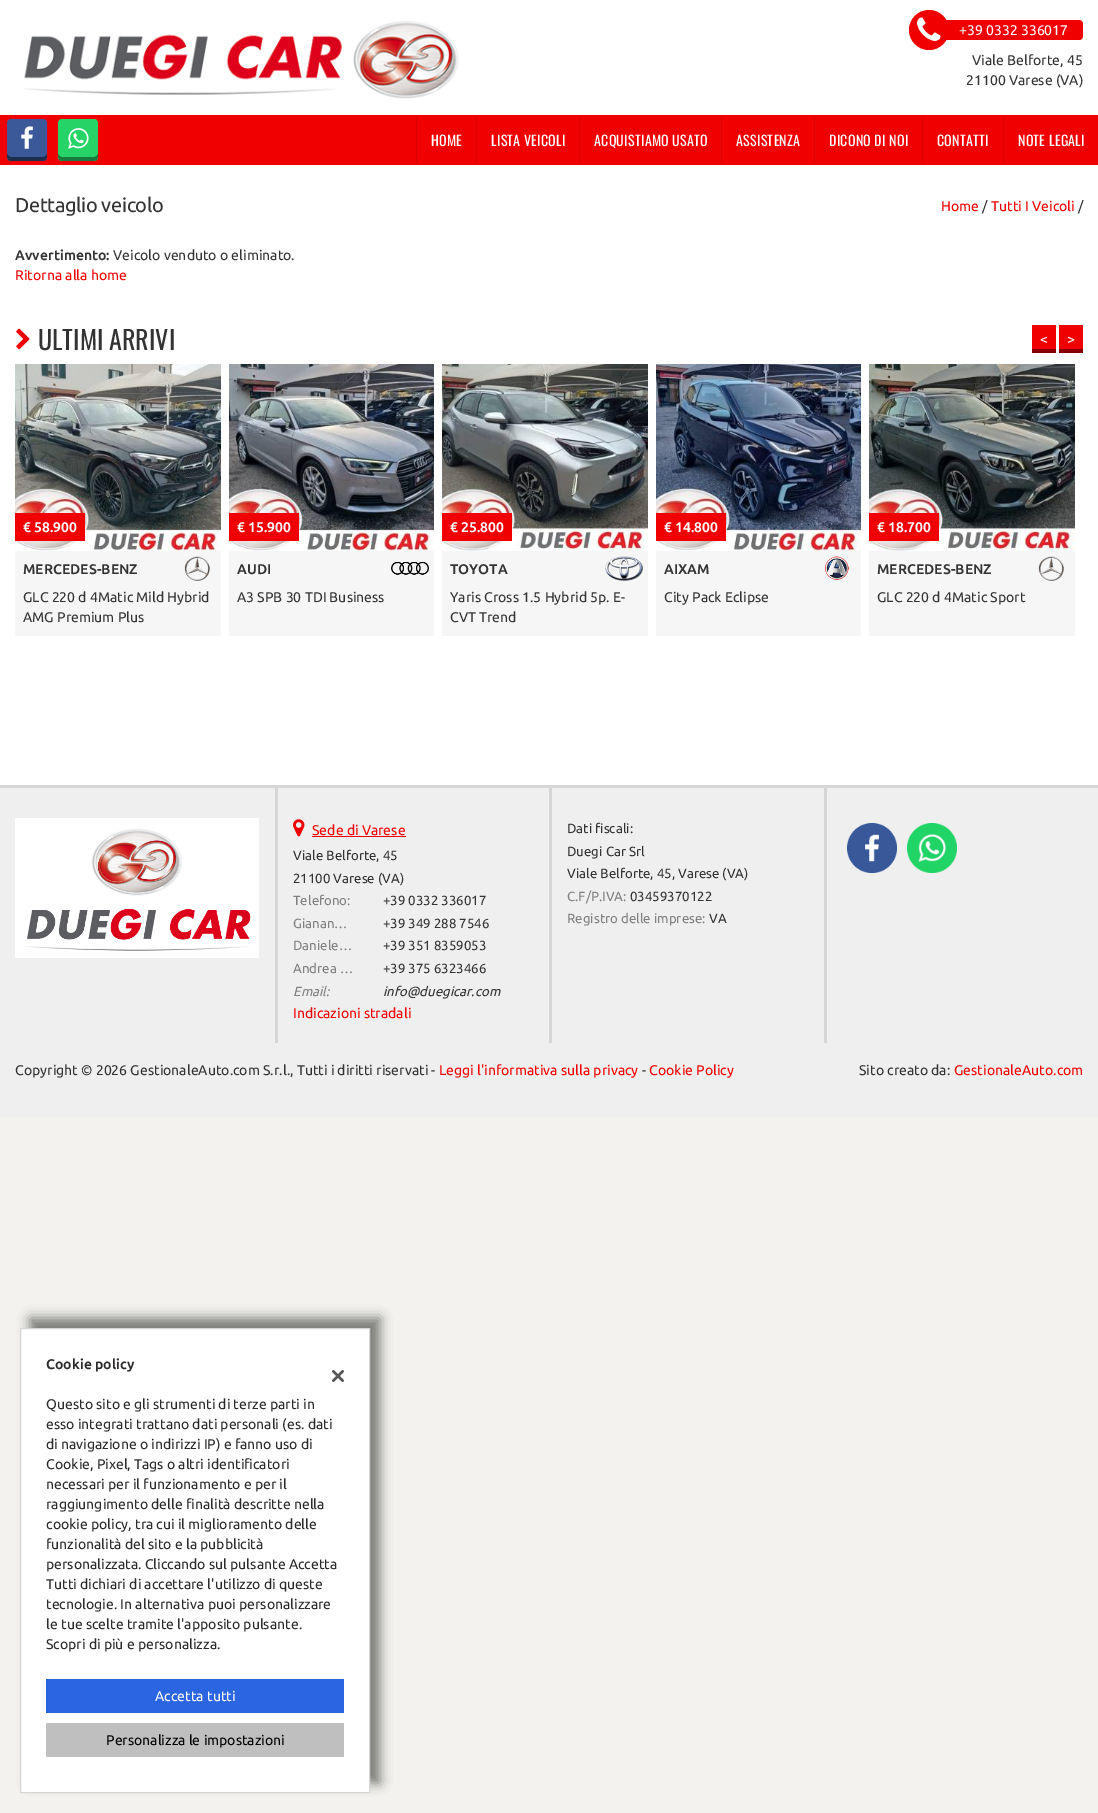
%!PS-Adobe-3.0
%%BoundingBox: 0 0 1098 1813
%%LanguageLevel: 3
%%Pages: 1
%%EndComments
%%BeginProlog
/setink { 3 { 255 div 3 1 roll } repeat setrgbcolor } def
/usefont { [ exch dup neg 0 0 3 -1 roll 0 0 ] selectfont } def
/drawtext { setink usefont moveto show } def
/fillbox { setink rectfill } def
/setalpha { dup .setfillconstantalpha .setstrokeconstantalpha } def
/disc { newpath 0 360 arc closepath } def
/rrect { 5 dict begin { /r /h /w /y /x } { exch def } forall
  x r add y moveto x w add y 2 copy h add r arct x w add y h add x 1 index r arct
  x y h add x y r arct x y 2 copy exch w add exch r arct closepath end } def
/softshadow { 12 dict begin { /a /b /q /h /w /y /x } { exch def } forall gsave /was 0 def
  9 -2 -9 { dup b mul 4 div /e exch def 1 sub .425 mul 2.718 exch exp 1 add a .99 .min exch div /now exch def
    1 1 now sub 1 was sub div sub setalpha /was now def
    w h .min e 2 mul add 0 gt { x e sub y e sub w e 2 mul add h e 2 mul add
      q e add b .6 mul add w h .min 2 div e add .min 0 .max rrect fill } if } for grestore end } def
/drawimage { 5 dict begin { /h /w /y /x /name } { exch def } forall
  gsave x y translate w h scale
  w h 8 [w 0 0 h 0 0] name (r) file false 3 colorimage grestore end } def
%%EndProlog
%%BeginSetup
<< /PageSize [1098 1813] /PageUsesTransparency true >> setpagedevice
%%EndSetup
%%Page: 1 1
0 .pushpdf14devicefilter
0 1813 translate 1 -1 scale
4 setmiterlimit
0 0 1098 1813 243 242 238 fillbox
0 0 1098 785 255 255 255 fillbox
(assets/img1.rgb) 24 21 435 78 drawimage
240 0 0 setink
929 30 20 disc fill
(assets/img2.rgb) 917 17 24 24 drawimage
944 20 139 20 4 rrect fill
(+39 0332 336017) 959 35 /Ubuntu-Regular 14 255 255 255 drawtext
(Viale Belforte, 45) 972 65 /Ubuntu-Regular 14 51 51 51 drawtext
(21100 Varese \(VA\)) 966 85 /Ubuntu-Regular 14 51 51 51 drawtext
0 115 1098 50 240 0 0 fillbox
59 89 152 setink
7 119 40 42 4 rrect fill
30 46 79 setink
7 153 moveto 7 161 8 161 16 161 curveto 38 161 lineto 46 161 47 161 47 153 curveto 47 155 45 157 43 157 curveto 11 157 lineto 9 157 7 155 7 153 curveto closepath fill
(assets/img3.rgb) 21 126 12 23 drawimage
37 211 102 setink
58 119 40 42 4 rrect fill
22 124 60 setink
58 153 moveto 58 161 59 161 67 161 curveto 89 161 lineto 97 161 98 161 98 153 curveto 98 155 96 157 94 157 curveto 62 157 lineto 60 157 58 155 58 153 curveto closepath fill
(assets/img4.rgb) 68 128 21 21 drawimage
416 115 1 50 220 0 0 fillbox
/Oswald-Regular 14 usefont
255 255 255 setink
431 146 moveto 0.25 0 (HOME) ashow
476 115 1 50 220 0 0 fillbox
255 255 255 setink
491 146 moveto 0.25 0 (LISTA VEICOLI) ashow
579 115 1 50 220 0 0 fillbox
255 255 255 setink
594 146 moveto 0.25 0 (ACQUISTIAMO USATO) ashow
721 115 1 50 220 0 0 fillbox
255 255 255 setink
736 146 moveto 0.25 0 (ASSISTENZA) ashow
814 115 1 50 220 0 0 fillbox
255 255 255 setink
829 146 moveto 0.25 0 (DICONO DI NOI) ashow
922 115 1 50 220 0 0 fillbox
255 255 255 setink
937 146 moveto 0.25 0 (CONTATTI) ashow
1003 115 1 50 220 0 0 fillbox
255 255 255 setink
1018 146 moveto 0.25 0 (NOTE LEGALI) ashow
/Ubuntu-Regular 20 usefont
51 51 51 setink
15 212 moveto -0.4 0 (Dettaglio veicolo) ashow
(Home) 941 211 /Ubuntu-Regular 14 240 0 0 drawtext
(/) 982 211 /Ubuntu-Regular 14 51 51 51 drawtext
(Tutti I Veicoli) 991 211 /Ubuntu-Regular 14 240 0 0 drawtext
(/) 1078 211 /Ubuntu-Regular 14 51 51 51 drawtext
(Avvertimento:) 15 260 /Ubuntu-Bold 14 51 51 51 drawtext
(Veicolo venduto o eliminato.) 113 260 /Ubuntu-Regular 14 51 51 51 drawtext
(Ritorna alla home) 15 280 /Ubuntu-Regular 14 240 0 0 drawtext
(assets/img5.rgb) 16 328 14 22 drawimage
(ULTIMI ARRIVI) 38 350 /Oswald-Regular 26 51 51 51 drawtext
1032 325 24 24 240 0 0 fillbox
1032 349 24 4 138 0 0 fillbox
(<) 1040 344 /Ubuntu-Regular 14 255 255 255 drawtext
1059 325 24 24 240 0 0 fillbox
1059 349 24 4 138 0 0 fillbox
(>) 1067 344 /Ubuntu-Regular 14 255 255 255 drawtext
15 551 206 85 246 246 246 fillbox
(assets/img6.rgb) 15 364 206 187 drawimage
15 513 70 28 240 0 0 fillbox
(€ 58.900) 23 532 /Ubuntu-Bold 14 255 255 255 drawtext
(MERCEDES-BENZ) 23 574 /Ubuntu-Bold 14 51 51 51 drawtext
(assets/img7.rgb) 184 556 26 25 drawimage
(GLC 220 d 4Matic Mild Hybrid) 23 602 /Ubuntu-Regular 14 51 51 51 drawtext
(AMG Premium Plus) 23 622 /Ubuntu-Regular 14 51 51 51 drawtext
229 551 205 85 246 246 246 fillbox
(assets/img8.rgb) 229 364 205 187 drawimage
229 513 70 28 240 0 0 fillbox
(€ 15.900) 237 532 /Ubuntu-Bold 14 255 255 255 drawtext
(AUDI) 237 574 /Ubuntu-Bold 14 51 51 51 drawtext
(assets/img9.rgb) 391 562 38 13 drawimage
(A3 SPB 30 TDI Business) 237 602 /Ubuntu-Regular 14 51 51 51 drawtext
442 551 206 85 246 246 246 fillbox
(assets/img10.rgb) 442 364 206 187 drawimage
442 513 70 28 240 0 0 fillbox
(€ 25.800) 450 532 /Ubuntu-Bold 14 255 255 255 drawtext
(TOYOTA) 450 574 /Ubuntu-Bold 14 51 51 51 drawtext
(assets/img11.rgb) 605 556 38 25 drawimage
(Yaris Cross 1.5 Hybrid 5p. E-) 450 602 /Ubuntu-Regular 14 51 51 51 drawtext
(CVT Trend) 450 622 /Ubuntu-Regular 14 51 51 51 drawtext
656 551 205 85 246 246 246 fillbox
(assets/img12.rgb) 656 364 205 187 drawimage
656 513 70 28 240 0 0 fillbox
(€ 14.800) 664 532 /Ubuntu-Bold 14 255 255 255 drawtext
(AIXAM) 664 574 /Ubuntu-Bold 14 51 51 51 drawtext
(assets/img13.rgb) 825 556 24 24 drawimage
(City Pack Eclipse) 664 602 /Ubuntu-Regular 14 51 51 51 drawtext
869 551 206 85 246 246 246 fillbox
(assets/img14.rgb) 869 364 206 187 drawimage
869 513 70 28 240 0 0 fillbox
(€ 18.700) 877 532 /Ubuntu-Bold 14 255 255 255 drawtext
(MERCEDES-BENZ) 877 574 /Ubuntu-Bold 14 51 51 51 drawtext
(assets/img15.rgb) 1038 556 26 25 drawimage
(GLC 220 d 4Matic Sport) 877 602 /Ubuntu-Regular 14 51 51 51 drawtext
0 788 1098 329 239 239 239 fillbox
0 785 1098 3 214 214 214 fillbox
(assets/img16.rgb) 15 818 244 140 drawimage
275 788 3 255 214 214 214 fillbox
(assets/img17.rgb) 293 819 12 18 drawimage
(Sede di Varese) 312 835 /Ubuntu-Regular 14 240 0 0 drawtext
312 836 94 1 240 0 0 fillbox
(Viale Belforte, 45) 293 860 /Ubuntu-Regular 13.25 51 51 51 drawtext
(21100 Varese \(VA\)) 293 883 /Ubuntu-Regular 13.25 51 51 51 drawtext
(Telefono:) 293 905 /Ubuntu-Regular 13.25 128 128 128 drawtext
(+39 0332 336017) 383 905 /Ubuntu-Regular 13.25 51 51 51 drawtext
(Gianan…) 293 928 /Ubuntu-Regular 13.25 128 128 128 drawtext
(+39 349 288 7546) 383 928 /Ubuntu-Regular 13.25 51 51 51 drawtext
(Daniele…) 293 950 /Ubuntu-Regular 13.25 128 128 128 drawtext
(+39 351 8359053) 383 950 /Ubuntu-Regular 13.25 51 51 51 drawtext
(Andrea …) 293 973 /Ubuntu-Regular 13.25 128 128 128 drawtext
(+39 375 6323466) 383 973 /Ubuntu-Regular 13.25 51 51 51 drawtext
(Email:) 293 996 /Ubuntu-Italic 13.25 128 128 128 drawtext
(info@duegicar.com) 383 996 /Ubuntu-Italic 13.25 51 51 51 drawtext
(Indicazioni stradali) 293 1018 /Ubuntu-Regular 14 240 0 0 drawtext
549 788 3 255 214 214 214 fillbox
(Dati fiscali:) 567 833 /Ubuntu-Regular 13.25 51 51 51 drawtext
(Duegi Car Srl) 567 856 /Ubuntu-Regular 13.25 51 51 51 drawtext
(Viale Belforte, 45, Varese \(VA\)) 567 878 /Ubuntu-Regular 13.25 51 51 51 drawtext
(C.F/P.IVA:) 567 901 /Ubuntu-Regular 13.25 128 128 128 drawtext
(03459370122) 630 901 /Ubuntu-Regular 13.25 51 51 51 drawtext
(Registro delle imprese:) 567 923 /Ubuntu-Regular 13.25 128 128 128 drawtext
(VA) 709 923 /Ubuntu-Regular 13.25 51 51 51 drawtext
824 788 3 255 214 214 214 fillbox
(assets/img18.rgb) 847 823 50 50 drawimage
(assets/img19.rgb) 907 823 50 50 drawimage
(Copyright © 2026 GestionaleAuto.com S.r.l., Tutti i diritti riservati -) 15 1075 /Ubuntu-Regular 14 51 51 51 drawtext
(Leggi l'informativa sulla privacy) 439 1075 /Ubuntu-Regular 14 240 0 0 drawtext
(-) 642 1075 /Ubuntu-Regular 14 51 51 51 drawtext
(Cookie Policy) 649 1075 /Ubuntu-Regular 14 240 0 0 drawtext
(Sito creato da:) 859 1075 /Ubuntu-Regular 14 51 51 51 drawtext
(GestionaleAuto.com) 954 1075 /Ubuntu-Regular 14 240 0 0 drawtext
0 0 0 setink
30 1318 350 465 0 6 0.5 softshadow
255 255 255 setink
20.5 1328.5 moveto 369.5 1328.5 lineto 369.5 1792.5 lineto 20.5 1792.5 lineto closepath gsave fill grestore
214 214 214 setink
stroke
(Cookie policy) 46 1369 /Ubuntu-Bold 14 43 41 41 drawtext
(Questo sito e gli strumenti di terze parti in) 46 1409 /Ubuntu-Regular 14 43 41 41 drawtext
(esso integrati trattano dati personali \(es. dati) 46 1429 /Ubuntu-Regular 14 43 41 41 drawtext
(di navigazione o indirizzi IP\) e fanno uso di) 46 1449 /Ubuntu-Regular 14 43 41 41 drawtext
(Cookie, Pixel, Tags o altri identificatori) 46 1469 /Ubuntu-Regular 14 43 41 41 drawtext
(necessari per il funzionamento e per il) 46 1489 /Ubuntu-Regular 14 43 41 41 drawtext
(raggiungimento delle finalità descritte nella) 46 1509 /Ubuntu-Regular 14 43 41 41 drawtext
(cookie policy, tra cui il miglioramento delle) 46 1529 /Ubuntu-Regular 14 43 41 41 drawtext
(funzionalità del sito e la pubblicità) 46 1549 /Ubuntu-Regular 14 43 41 41 drawtext
(personalizzata. Cliccando sul pulsante Accetta) 46 1569 /Ubuntu-Regular 14 43 41 41 drawtext
(Tutti dichiari di accettare l'utilizzo di queste) 46 1589 /Ubuntu-Regular 14 43 41 41 drawtext
(tecnologie. In alternativa puoi personalizzare) 46 1609 /Ubuntu-Regular 14 43 41 41 drawtext
(le tue scelte tramite l'apposito pulsante.) 46 1629 /Ubuntu-Regular 14 43 41 41 drawtext
(Scopri di più e personalizza.) 46 1649 /Ubuntu-Regular 14 43 41 41 drawtext
(assets/img20.rgb) 332 1370 12 12 drawimage
46 1679 298 34 44 101 225 fillbox
(Accetta tutti) 155 1701 /Ubuntu-Regular 14 255 255 255 drawtext
46 1723 298 34 191 191 191 fillbox
(Personalizza le impostazioni) 106 1745 /Ubuntu-Regular 14 0 0 0 drawtext
.poppdf14devicefilter showpage
%%EOF
